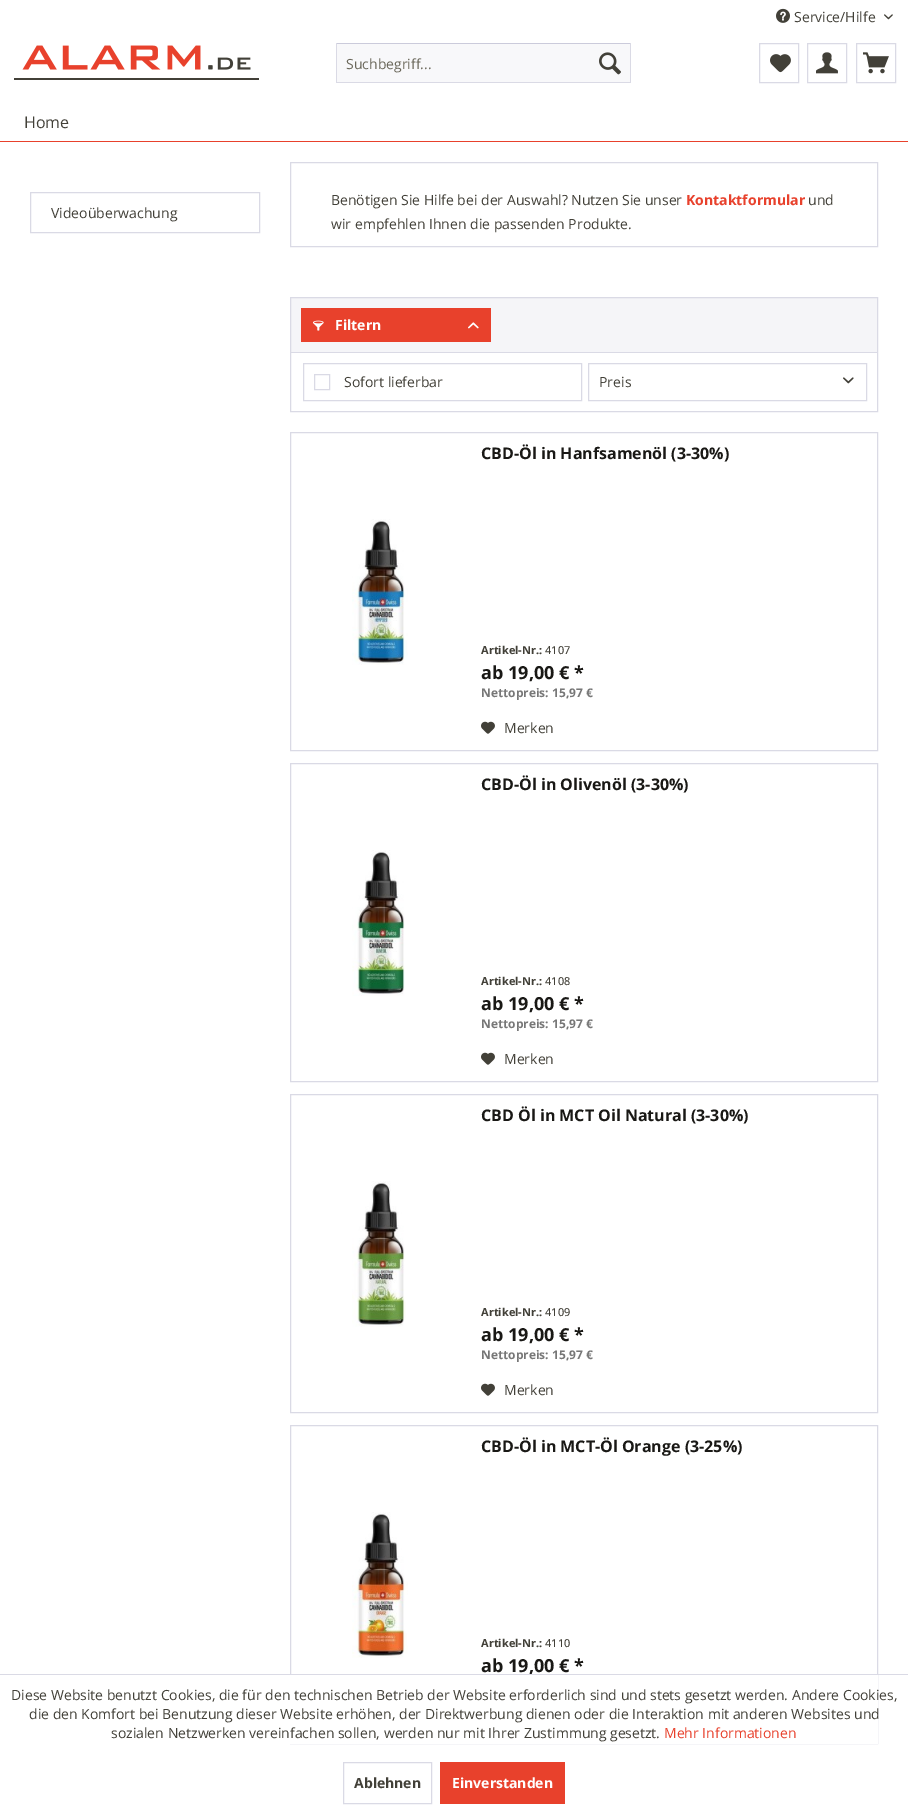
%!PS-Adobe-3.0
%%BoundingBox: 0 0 908 1814
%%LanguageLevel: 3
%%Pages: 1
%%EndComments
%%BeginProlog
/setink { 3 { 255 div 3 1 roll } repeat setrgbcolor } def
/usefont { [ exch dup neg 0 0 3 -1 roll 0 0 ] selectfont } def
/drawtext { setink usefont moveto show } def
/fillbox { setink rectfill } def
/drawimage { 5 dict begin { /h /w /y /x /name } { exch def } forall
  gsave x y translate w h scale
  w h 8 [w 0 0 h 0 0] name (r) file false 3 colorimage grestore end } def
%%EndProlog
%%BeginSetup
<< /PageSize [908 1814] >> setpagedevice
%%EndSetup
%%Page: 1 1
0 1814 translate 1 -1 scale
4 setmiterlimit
0 0 908 1814 255 255 255 fillbox
(assets/img1.rgb) 776 8 14 15 drawimage
(Service/Hilfe) 794 22 /OpenSans-Regular 14 66 64 56 drawtext
(assets/img2.rgb) 884 14 9 6 drawimage
(assets/img3.rgb) 14 45 245 35 drawimage
337 44 293 38 248 248 250 fillbox
336 43 295 1 203 203 219 fillbox
630 43 1 40 218 218 229 fillbox
336 82 295 1 218 218 229 fillbox
336 43 1 40 218 218 229 fillbox
(Suchbegriff...) 346 69 /OpenSans-Regular 14 107 104 91 drawtext
(assets/img4.rgb) 599 52 22 23 drawimage
218 218 229 setink
759.5 43.5 39 39 rectstroke
(assets/img5.rgb) 770 54 21 19 drawimage
807.5 43.5 39 39 rectstroke
(assets/img6.rgb) 816 52 22 22 drawimage
856.5 43.5 39 39 rectstroke
(assets/img7.rgb) 863 52 26 22 drawimage
0 141 908 1 232 65 44 fillbox
(Home) 24 128 /OpenSans-Regular 16 66 64 56 drawtext
218 218 229 setink
30.5 192.5 229 40 rectstroke
(Videoüberwachung) 51 218 /OpenSans-Regular 14 66 64 56 drawtext
218 218 229 setink
290.5 162.5 587 84 rectstroke
(Benötigen Sie Hilfe bei der Auswahl? Nutzen Sie unser) 331 205 /OpenSans-Regular 14 66 64 56 drawtext
(Kontaktformular) 686 205 /OpenSans-Bold 14 232 65 44 drawtext
(und) 808 205 /OpenSans-Regular 14 66 64 56 drawtext
(wir empfehlen Ihnen die passenden Produkte.) 331 229 /OpenSans-Regular 14 66 64 56 drawtext
291 298 586 54 245 245 248 fillbox
218 218 229 setink
290.5 297.5 587 114 rectstroke
301 308 190 34 232 65 44 fillbox
(assets/img8.rgb) 313 320 11 11 drawimage
(Filtern) 335 330 /OpenSans-Bold 14 255 255 255 drawtext
(assets/img9.rgb) 468 322 11 7 drawimage
291 352 586 1 218 218 229 fillbox
303.5 363.5 278 37 rectstroke
314.5 374.5 15 15 rectstroke
(Sofort lieferbar) 344 387 /OpenSans-Regular 14 66 64 56 drawtext
218 218 229 setink
588.5 363.5 278 37 rectstroke
(Preis) 599 387 /OpenSans-Regular 14 66 64 56 drawtext
(assets/img10.rgb) 843 377 11 7 drawimage
218 218 229 setink
290.5 432.5 587 318 rectstroke
(CBD-Öl in Hanfsamenöl \(3-30%\)) 481 459 /OpenSans-Bold 16 25 24 21 drawtext
(assets/img11.rgb) 352 519 56 146 drawimage
(Artikel-Nr.:) 481 654 /OpenSans-Bold 11 66 64 56 drawtext
(4107) 545 654 /OpenSans-Medium 11 66 64 56 drawtext
(ab 19,00 € *) 481 679 /OpenSans-Bold 18 25 24 21 drawtext
(Nettopreis: 15,97 €) 481 697 /OpenSans-Bold 12 119 119 119 drawtext
(assets/img12.rgb) 481 721 14 13 drawimage
(Merken) 504 733 /OpenSans-Regular 14 66 64 56 drawtext
218 218 229 setink
290.5 763.5 587 318 rectstroke
(CBD-Öl in Olivenöl \(3-30%\)) 481 790 /OpenSans-Bold 16 25 24 21 drawtext
(assets/img13.rgb) 352 850 53 146 drawimage
(Artikel-Nr.:) 481 985 /OpenSans-Bold 11 66 64 56 drawtext
(4108) 545 985 /OpenSans-Medium 11 66 64 56 drawtext
(ab 19,00 € *) 481 1010 /OpenSans-Bold 18 25 24 21 drawtext
(Nettopreis: 15,97 €) 481 1028 /OpenSans-Bold 12 119 119 119 drawtext
(assets/img12.rgb) 481 1052 14 13 drawimage
(Merken) 504 1064 /OpenSans-Regular 14 66 64 56 drawtext
218 218 229 setink
290.5 1094.5 587 318 rectstroke
(CBD Öl in MCT Oil Natural \(3-30%\)) 481 1121 /OpenSans-Bold 16 25 24 21 drawtext
(assets/img14.rgb) 352 1181 54 146 drawimage
(Artikel-Nr.:) 481 1316 /OpenSans-Bold 11 66 64 56 drawtext
(4109) 545 1316 /OpenSans-Medium 11 66 64 56 drawtext
(ab 19,00 € *) 481 1341 /OpenSans-Bold 18 25 24 21 drawtext
(Nettopreis: 15,97 €) 481 1359 /OpenSans-Bold 12 119 119 119 drawtext
(assets/img12.rgb) 481 1383 14 13 drawimage
(Merken) 504 1395 /OpenSans-Regular 14 66 64 56 drawtext
218 218 229 setink
290.5 1425.5 587 318 rectstroke
(CBD-Öl in MCT-Öl Orange \(3-25%\)) 481 1452 /OpenSans-Bold 16 25 24 21 drawtext
(assets/img15.rgb) 352 1512 56 146 drawimage
(Artikel-Nr.:) 481 1647 /OpenSans-Bold 11 66 64 56 drawtext
(4110) 545 1647 /OpenSans-Medium 11 66 64 56 drawtext
(ab 19,00 € *) 481 1672 /OpenSans-Bold 18 25 24 21 drawtext
290 1675 588 69 255 255 255 fillbox
0 1674 908 1 218 218 229 fillbox
(Diese Website benutzt Cookies, die für den technischen Betrieb der Website erforderlich sind und stets gesetzt werden. Andere Cookies,) 11 1700 /OpenSans-Regular 14 66 64 56 drawtext
(die den Komfort bei Benutzung dieser Website erhöhen, der Direktwerbung dienen oder die Interaktion mit anderen Websites und) 29 1719 /OpenSans-Regular 14 66 64 56 drawtext
(sozialen Netzwerken vereinfachen sollen, werden nur mit Ihrer Zustimmung gesetzt.) 111 1738 /OpenSans-Regular 14 66 64 56 drawtext
(Mehr Informationen) 664 1738 /OpenSans-Regular 14 232 65 44 drawtext
218 218 229 setink
343.5 1762.5 88 41 rectstroke
(Ablehnen) 354 1788 /OpenSans-Bold 14 66 64 56 drawtext
440 1762 125 42 232 65 44 fillbox
(Einverstanden) 452 1788 /OpenSans-Bold 14 255 255 255 drawtext
showpage
%%EOF
